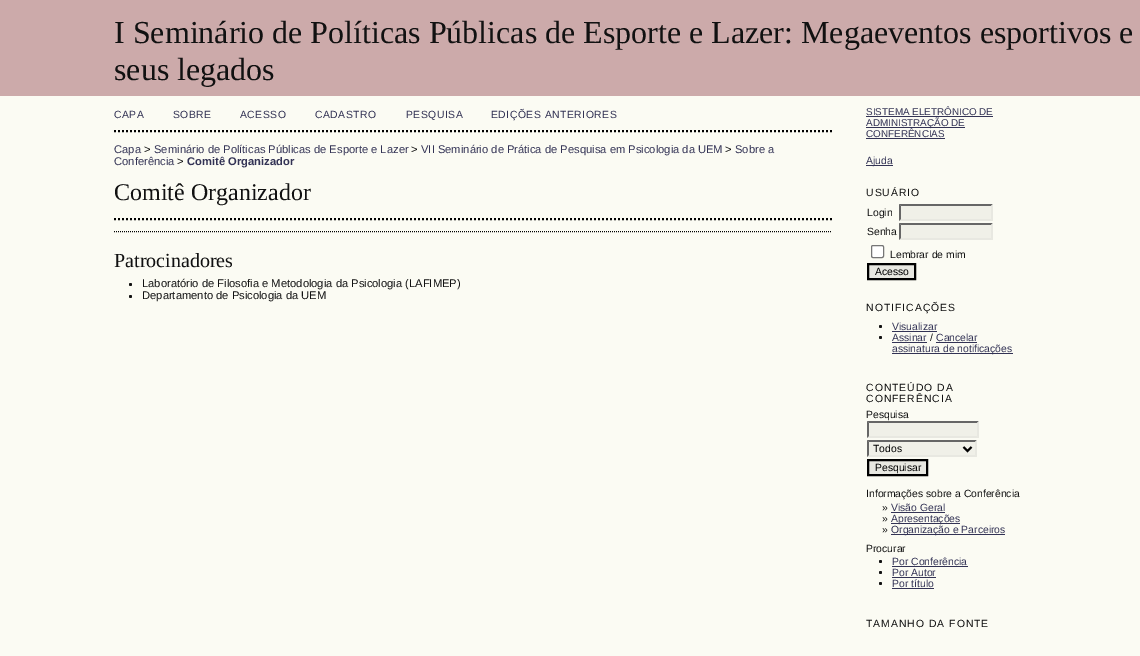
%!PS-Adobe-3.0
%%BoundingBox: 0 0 1140 656
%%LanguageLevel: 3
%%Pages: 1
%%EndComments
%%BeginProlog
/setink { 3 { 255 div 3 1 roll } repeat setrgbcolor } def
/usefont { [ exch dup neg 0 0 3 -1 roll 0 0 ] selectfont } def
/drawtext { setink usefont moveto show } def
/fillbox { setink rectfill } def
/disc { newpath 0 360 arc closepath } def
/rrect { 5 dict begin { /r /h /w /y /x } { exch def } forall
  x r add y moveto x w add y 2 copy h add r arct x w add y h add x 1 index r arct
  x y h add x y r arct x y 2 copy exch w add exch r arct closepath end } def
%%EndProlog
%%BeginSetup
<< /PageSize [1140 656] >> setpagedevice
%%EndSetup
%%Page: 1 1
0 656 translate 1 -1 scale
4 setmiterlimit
0 0 1140 656 251 251 243 fillbox
0 0 1140 96 204 170 170 fillbox
(I Seminário de Políticas Públicas de Esporte e Lazer: Megaeventos esportivos e) 114 43 /LiberationSerif-Regular 32 17 17 17 drawtext
(seus legados) 114 80 /LiberationSerif-Regular 32 17 17 17 drawtext
0 0 0 setink
2 setlinewidth
[2 2] 0 setdash
114 131 moveto 832 131 lineto stroke
/LiberationSans-Regular 10.4 usefont
51 51 85 setink
114 118 moveto 0.5 0 (CAPA) ashow
173 118 moveto 0.5 0 (SOBRE) ashow
240 118 moveto 0.5 0 (ACESSO) ashow
315 118 moveto 0.5 0 (CADASTRO) ashow
406 118 moveto 0.5 0 (PESQUISA) ashow
491 118 moveto 0.5 0 (EDIÇÕES ANTERIORES) ashow
(Capa) 114 153 /LiberationSans-Regular 11.2 51 51 85 drawtext
(>) 144 153 /LiberationSans-Regular 11.2 17 17 17 drawtext
(Seminário de Políticas Públicas de Esporte e Lazer) 154 153 /LiberationSans-Regular 11.2 51 51 85 drawtext
(>) 411 153 /LiberationSans-Regular 11.2 17 17 17 drawtext
(VII Seminário de Prática de Pesquisa em Psicologia da UEM) 421 153 /LiberationSans-Regular 11.2 51 51 85 drawtext
(>) 725 153 /LiberationSans-Regular 11.2 17 17 17 drawtext
(Sobre a) 735 153 /LiberationSans-Regular 11.2 51 51 85 drawtext
(Conferência) 114 165 /LiberationSans-Regular 11.2 51 51 85 drawtext
(>) 177 165 /LiberationSans-Regular 11.2 17 17 17 drawtext
(Comitê Organizador) 187 165 /LiberationSans-Bold 11.2 51 51 85 drawtext
(Comitê Organizador) 114 200 /LiberationSerif-Regular 24 17 17 17 drawtext
0 0 0 setink
114 219 moveto 832 219 lineto stroke
1 setlinewidth
[1 1] 0 setdash
114 231.5 moveto 832 231.5 lineto stroke
(Patrocinadores) 114 267 /LiberationSerif-Regular 20 17 17 17 drawtext
130.5 284.5 1.5 disc fill
(Laboratório de Filosofia e Metodologia da Psicologia \(LAFIMEP\)) 142 287 /LiberationSans-Regular 11.2 17 17 17 drawtext
130.5 296.5 1.5 disc fill
(Departamento de Psicologia da UEM) 142 299 /LiberationSans-Regular 11.2 17 17 17 drawtext
(SISTEMA ELETRÔNICO DE) 866 115 /LiberationSans-Regular 9.9 51 51 85 drawtext
866 116 127 1 51 51 85 fillbox
866 127 99 1 51 51 85 fillbox
(ADMINISTRAÇÃO DE) 866 126 /LiberationSans-Regular 9.9 51 51 85 drawtext
(CONFERÊNCIAS) 866 137 /LiberationSans-Regular 9.9 51 51 85 drawtext
866 138 79 1 51 51 85 fillbox
866 165 27 1 51 51 85 fillbox
(Ajuda) 866 164 /LiberationSans-Regular 10.4 51 51 85 drawtext
17 17 17 setink
866 196 moveto 1 0 (USUÁRIO) ashow
(Login) 867 216 /LiberationSans-Regular 10.4 17 17 17 drawtext
899 204 94 17 240 240 232 fillbox
102 102 102 setink
899 204 moveto 993 204 lineto 991 206 lineto 901 206 lineto closepath fill
232 232 225 setink
993 204 moveto 993 221 lineto 991 219 lineto 991 206 lineto closepath fill
993 221 moveto 899 221 lineto 901 219 lineto 991 219 lineto closepath fill
102 102 102 setink
899 221 moveto 899 204 lineto 901 206 lineto 901 219 lineto closepath fill
(Senha) 867 235 /LiberationSans-Regular 10.4 17 17 17 drawtext
899 223 94 17 240 240 232 fillbox
102 102 102 setink
899 223 moveto 993 223 lineto 991 225 lineto 901 225 lineto closepath fill
232 232 225 setink
993 223 moveto 993 240 lineto 991 238 lineto 991 225 lineto closepath fill
993 240 moveto 899 240 lineto 901 238 lineto 991 238 lineto closepath fill
102 102 102 setink
899 240 moveto 899 223 lineto 901 225 lineto 901 238 lineto closepath fill
255 255 255 setink
871.5 245.5 12 12 1.5 rrect gsave fill grestore
118 118 118 setink
[] 0 setdash
stroke
(Lembrar de mim) 890 258 /LiberationSans-Regular 10.4 17 17 17 drawtext
232 232 225 setink
868 264 moveto 915 264 lineto 915 279 lineto 868 279 lineto closepath gsave fill grestore
0 0 0 setink
2 setlinewidth
stroke
(Acesso) 875 275 /LiberationSans-Regular 10.4 0 0 0 drawtext
17 17 17 setink
866 311 moveto 1 0 (NOTIFICAÇÕES) ashow
880.5 326.5 1.5 disc fill
(Visualizar) 892 330 /LiberationSans-Regular 10.4 51 51 85 drawtext
892 331 45 1 51 51 85 fillbox
17 17 17 setink
880.5 337.5 1.5 disc fill
(Assinar) 892 341 /LiberationSans-Regular 10.4 51 51 85 drawtext
892 342 35 1 51 51 85 fillbox
(/) 930 341 /LiberationSans-Regular 10.4 17 17 17 drawtext
(Cancelar) 936 341 /LiberationSans-Regular 10.4 51 51 85 drawtext
936 342 41 1 51 51 85 fillbox
892 353 121 1 51 51 85 fillbox
(assinatura de notificações) 892 352 /LiberationSans-Regular 10.4 51 51 85 drawtext
17 17 17 setink
866 391 moveto 1 0 (CONTEÚDO DA) ashow
866 402 moveto 1 0 (CONFERÊNCIA) ashow
(Pesquisa) 866 418 /LiberationSans-Regular 10.4 17 17 17 drawtext
867 421 112 17 240 240 232 fillbox
102 102 102 setink
867 421 moveto 979 421 lineto 977 423 lineto 869 423 lineto closepath fill
232 232 225 setink
979 421 moveto 979 438 lineto 977 436 lineto 977 423 lineto closepath fill
979 438 moveto 867 438 lineto 869 436 lineto 977 436 lineto closepath fill
102 102 102 setink
867 438 moveto 867 421 lineto 869 423 lineto 869 436 lineto closepath fill
867 440 110 17 240 240 232 fillbox
102 102 102 setink
867 440 moveto 977 440 lineto 975 442 lineto 869 442 lineto closepath fill
232 232 225 setink
977 440 moveto 977 457 lineto 975 455 lineto 975 442 lineto closepath fill
977 457 moveto 867 457 lineto 869 455 lineto 975 455 lineto closepath fill
102 102 102 setink
867 457 moveto 867 440 lineto 869 442 lineto 869 455 lineto closepath fill
0 0 0 setink
963.5 447 moveto 967.5 451 lineto 971.5 447 lineto stroke
(Todos) 873 452 /LiberationSans-Regular 10.4 0 0 0 drawtext
232 232 225 setink
868 460 moveto 927 460 lineto 927 475 lineto 868 475 lineto closepath gsave fill grestore
0 0 0 setink
stroke
(Pesquisar) 875 471 /LiberationSans-Regular 10.4 0 0 0 drawtext
(Informações sobre a Conferência) 866 497 /LiberationSans-Regular 10.4 17 17 17 drawtext
(») 882 511 /LiberationSans-Regular 10.4 17 17 17 drawtext
(Visão Geral) 891 511 /LiberationSans-Regular 10.4 51 51 85 drawtext
891 512 54 1 51 51 85 fillbox
(») 882 522 /LiberationSans-Regular 10.4 17 17 17 drawtext
891 523 69 1 51 51 85 fillbox
(Apresentações) 891 522 /LiberationSans-Regular 10.4 51 51 85 drawtext
(») 882 533 /LiberationSans-Regular 10.4 17 17 17 drawtext
891 534 114 1 51 51 85 fillbox
(Organização e Parceiros) 891 533 /LiberationSans-Regular 10.4 51 51 85 drawtext
(Procurar) 866 552 /LiberationSans-Regular 10.4 17 17 17 drawtext
880.5 561.5 1.5 disc fill
(Por Conferência) 892 565 /LiberationSans-Regular 10.4 51 51 85 drawtext
892 566 76 1 51 51 85 fillbox
17 17 17 setink
880.5 572.5 1.5 disc fill
(Por Autor) 892 576 /LiberationSans-Regular 10.4 51 51 85 drawtext
892 577 44 1 51 51 85 fillbox
17 17 17 setink
880.5 583.5 1.5 disc fill
(Por título) 892 587 /LiberationSans-Regular 10.4 51 51 85 drawtext
892 588 42 1 51 51 85 fillbox
17 17 17 setink
866 627 moveto 1 0 (TAMANHO DA FONTE) ashow
showpage
%%EOF
